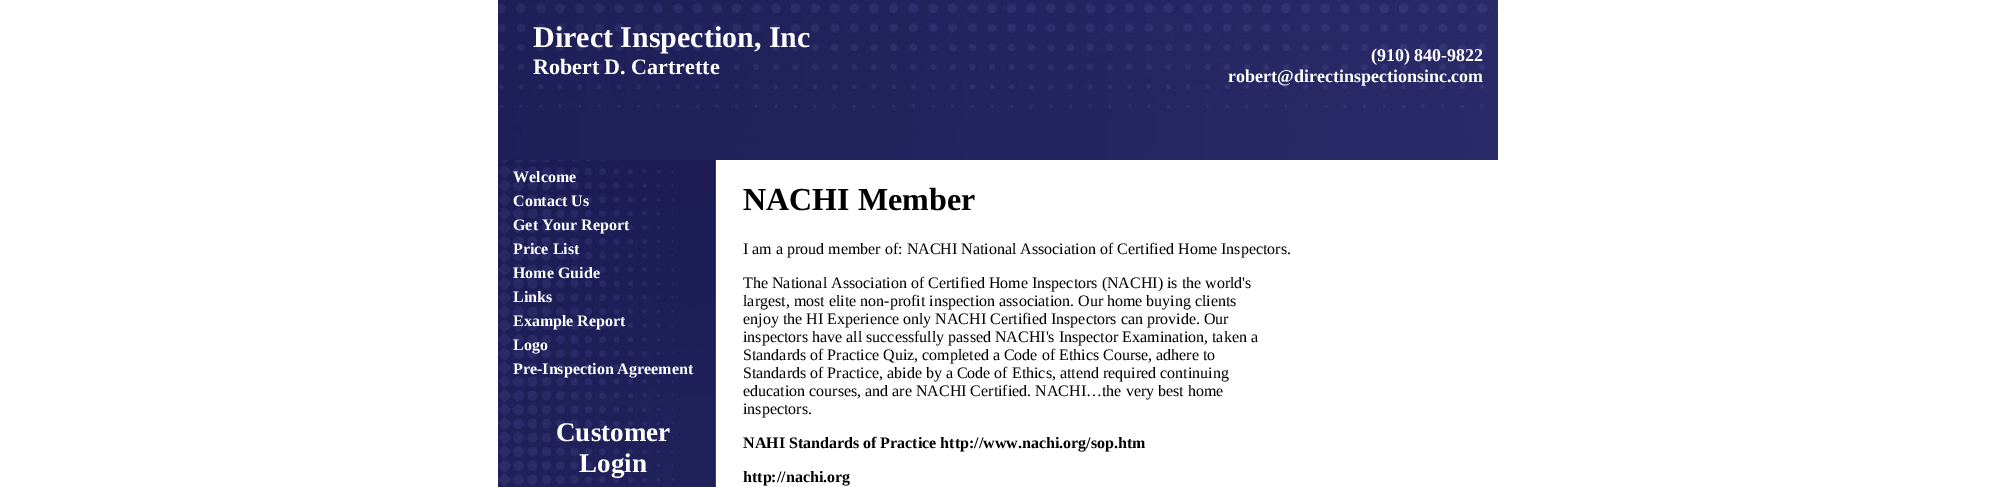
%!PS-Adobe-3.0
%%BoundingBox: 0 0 1996 487
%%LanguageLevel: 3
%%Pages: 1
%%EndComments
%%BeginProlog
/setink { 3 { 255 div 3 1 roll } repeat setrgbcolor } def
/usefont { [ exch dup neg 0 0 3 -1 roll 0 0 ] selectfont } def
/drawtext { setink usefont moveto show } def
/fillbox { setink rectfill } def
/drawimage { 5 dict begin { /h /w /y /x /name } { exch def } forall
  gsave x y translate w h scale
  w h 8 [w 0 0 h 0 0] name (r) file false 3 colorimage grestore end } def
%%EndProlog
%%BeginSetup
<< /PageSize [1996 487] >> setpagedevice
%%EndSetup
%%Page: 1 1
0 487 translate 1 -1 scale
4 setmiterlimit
0 0 1996 487 255 255 255 fillbox
(assets/img1.rgb) 498 160 218 327 drawimage
(assets/img2.rgb) 498 0 1000 160 drawimage
(Direct Inspection, Inc) 533 47 /LiberationSerif-Bold 30 255 255 255 drawtext
(Robert D. Cartrette) 533 74 /LiberationSerif-Bold 22 255 255 255 drawtext
(\(910\) 840-9822) 1371 61 /LiberationSerif-Bold 18 255 255 255 drawtext
(robert@directinspectionsinc.com) 1228 82 /LiberationSerif-Bold 18 255 255 255 drawtext
(Welcome) 513 182 /LiberationSerif-Bold 16 255 255 255 drawtext
(Contact Us) 513 206 /LiberationSerif-Bold 16 255 255 255 drawtext
(Get Your Report) 513 230 /LiberationSerif-Bold 16 255 255 255 drawtext
(Price List) 513 254 /LiberationSerif-Bold 16 255 255 255 drawtext
(Home Guide) 513 278 /LiberationSerif-Bold 16 255 255 255 drawtext
(Links) 513 302 /LiberationSerif-Bold 16 255 255 255 drawtext
(Example Report) 513 326 /LiberationSerif-Bold 16 255 255 255 drawtext
(Logo) 513 350 /LiberationSerif-Bold 16 255 255 255 drawtext
(Pre-Inspection Agreement) 513 374 /LiberationSerif-Bold 16 255 255 255 drawtext
(Customer) 556 441 /LiberationSerif-Bold 27 255 255 255 drawtext
(Login) 579 472 /LiberationSerif-Bold 27 255 255 255 drawtext
(NACHI Member) 743 210 /LiberationSerif-Bold 32 0 0 0 drawtext
(I am a proud member of: NACHI National Association of Certified Home Inspectors.) 743 254 /LiberationSerif-Regular 16 0 0 0 drawtext
(The National Association of Certified Home Inspectors \(NACHI\) is the world's) 743 288 /LiberationSerif-Regular 16 0 0 0 drawtext
(largest, most elite non-profit inspection association. Our home buying clients) 743 306 /LiberationSerif-Regular 16 0 0 0 drawtext
(enjoy the HI Experience only NACHI Certified Inspectors can provide. Our) 743 324 /LiberationSerif-Regular 16 0 0 0 drawtext
(inspectors have all successfully passed NACHI's Inspector Examination, taken a) 743 342 /LiberationSerif-Regular 16 0 0 0 drawtext
(Standards of Practice Quiz, completed a Code of Ethics Course, adhere to) 743 360 /LiberationSerif-Regular 16 0 0 0 drawtext
(Standards of Practice, abide by a Code of Ethics, attend required continuing) 743 378 /LiberationSerif-Regular 16 0 0 0 drawtext
(education courses, and are NACHI Certified. NACHI…the very best home) 743 396 /LiberationSerif-Regular 16 0 0 0 drawtext
(inspectors.) 743 414 /LiberationSerif-Regular 16 0 0 0 drawtext
(NAHI Standards of Practice http://www.nachi.org/sop.htm) 743 448 /LiberationSerif-Bold 16 0 0 0 drawtext
(http://nachi.org) 743 482 /LiberationSerif-Bold 16 0 0 0 drawtext
showpage
%%EOF
